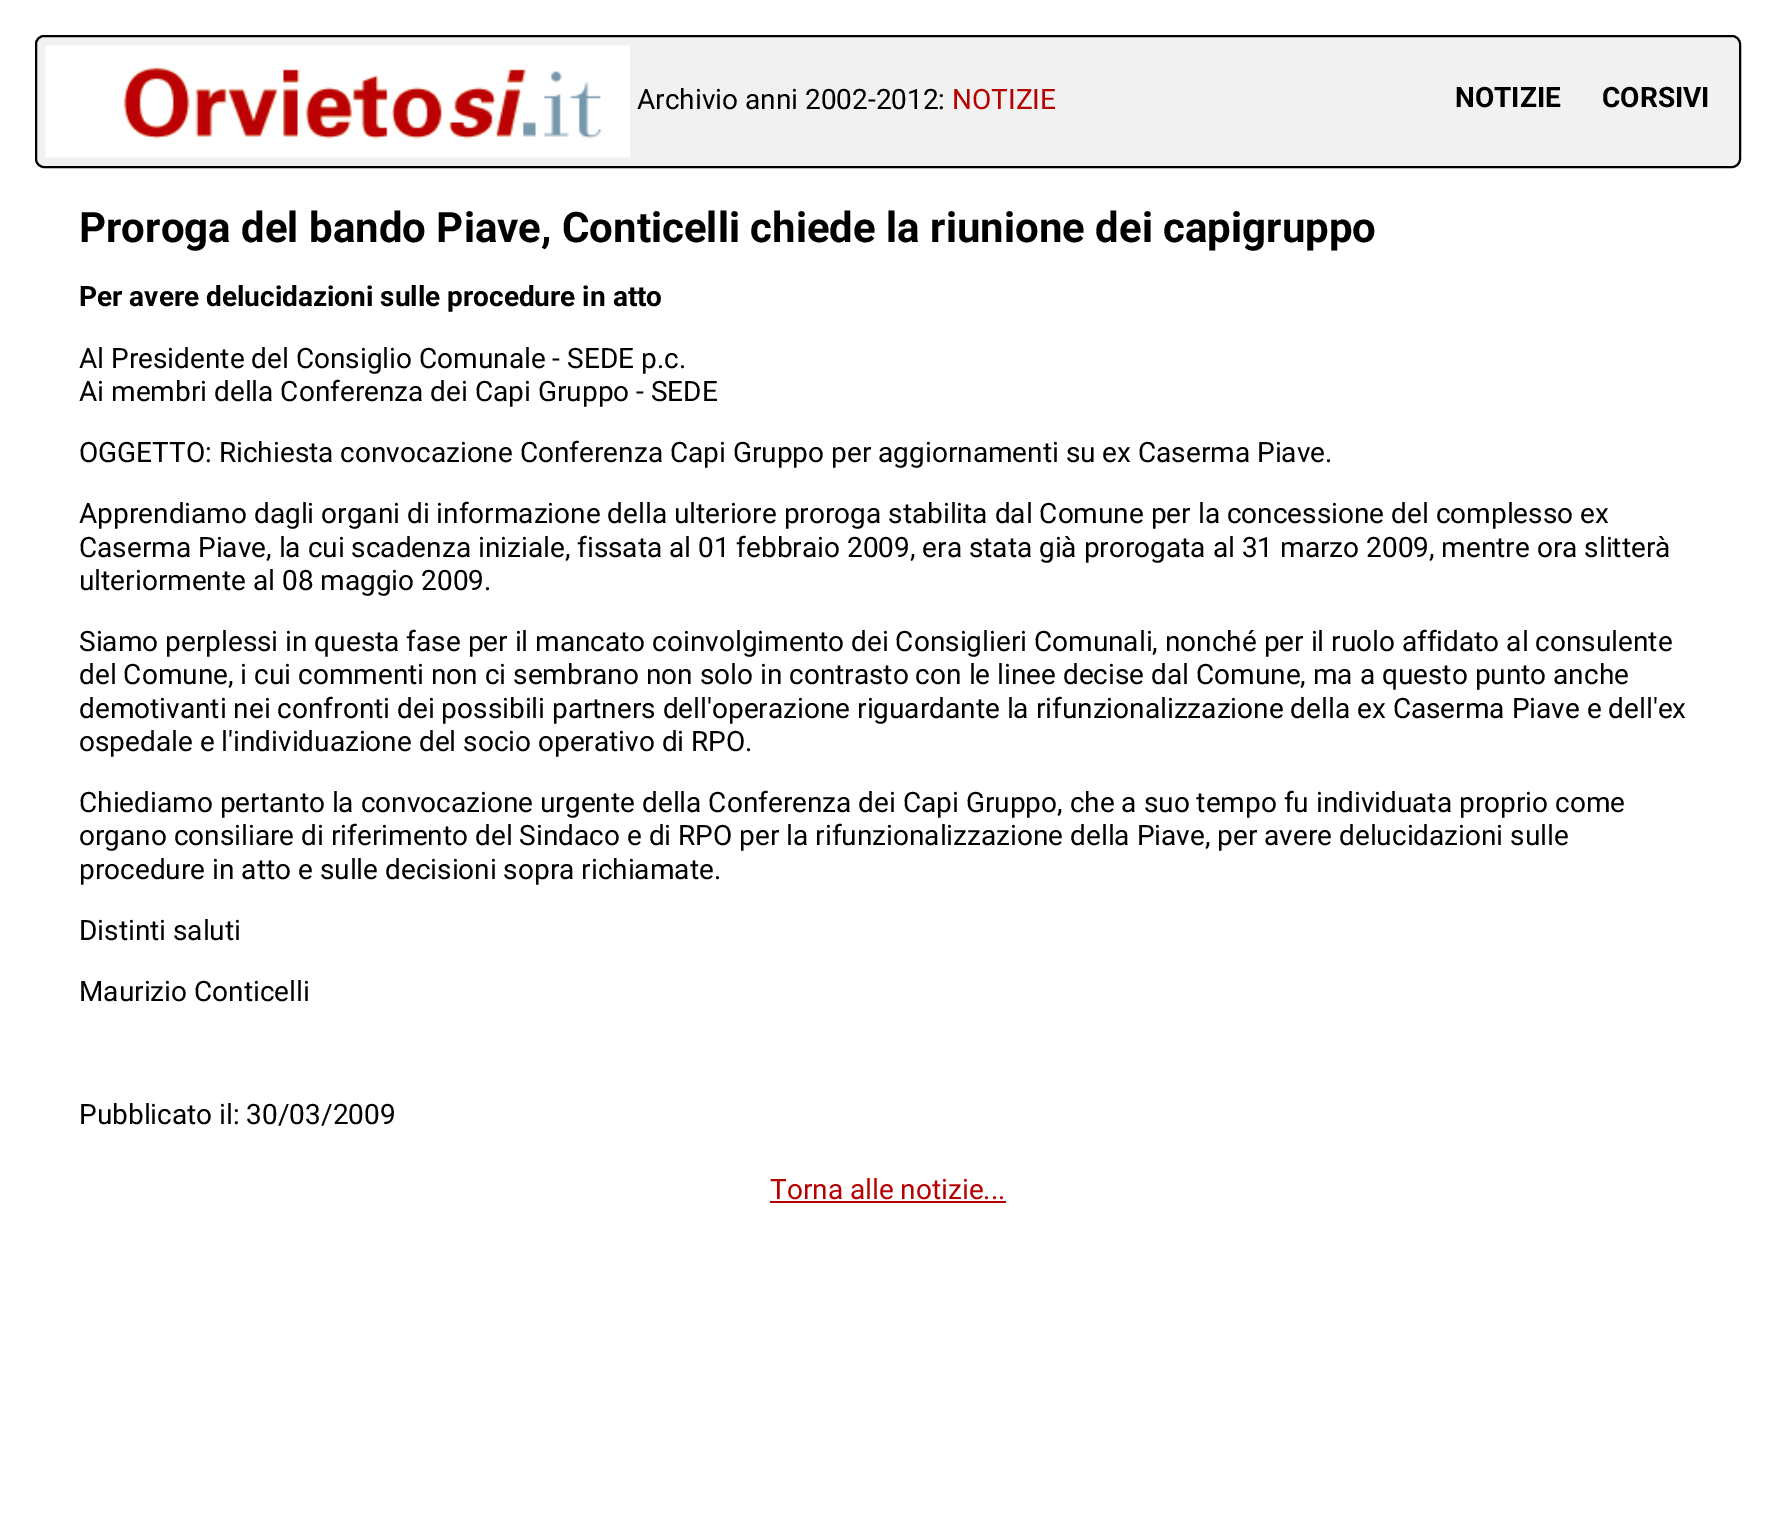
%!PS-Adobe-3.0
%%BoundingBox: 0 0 1776 1527
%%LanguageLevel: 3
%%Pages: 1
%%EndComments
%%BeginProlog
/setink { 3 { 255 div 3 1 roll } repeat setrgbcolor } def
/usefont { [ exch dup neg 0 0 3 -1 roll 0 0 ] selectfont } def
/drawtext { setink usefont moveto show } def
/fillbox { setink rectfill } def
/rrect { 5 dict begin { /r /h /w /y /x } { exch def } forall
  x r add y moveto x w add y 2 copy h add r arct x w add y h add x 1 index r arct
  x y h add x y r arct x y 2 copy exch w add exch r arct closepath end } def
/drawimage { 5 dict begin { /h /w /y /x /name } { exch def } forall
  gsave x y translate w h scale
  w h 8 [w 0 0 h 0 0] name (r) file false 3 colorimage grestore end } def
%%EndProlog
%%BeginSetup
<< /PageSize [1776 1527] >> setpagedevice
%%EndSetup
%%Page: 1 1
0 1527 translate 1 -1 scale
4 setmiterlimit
0 0 1776 1527 255 255 255 fillbox
241 241 241 setink
36 36 1704 131 8 rrect gsave fill grestore
0 0 0 setink
2 setlinewidth
stroke
(assets/img1.rgb) 45 45 585 113 drawimage
(Archivio anni 2002-2012:) 637 109 /Roboto-Regular 28 0 0 0 drawtext
(NOTIZIE) 952 109 /Roboto-Regular 28 183 1 0 drawtext
(NOTIZIE) 1455 107 /Roboto-Bold 28 0 0 0 drawtext
(CORSIVI) 1602 107 /Roboto-Bold 28 0 0 0 drawtext
(Proroga del bando Piave, Conticelli chiede la riunione dei capigruppo) 79 242 /Roboto-Bold 42 0 0 0 drawtext
(Per avere delucidazioni sulle procedure in atto) 79 306 /Roboto-Bold 28 0 0 0 drawtext
(Al Presidente del Consiglio Comunale - SEDE p.c.) 79 368 /Roboto-Regular 28 0 0 0 drawtext
(Ai membri della Conferenza dei Capi Gruppo - SEDE) 79 401 /Roboto-Regular 28 0 0 0 drawtext
(OGGETTO: Richiesta convocazione Conferenza Capi Gruppo per aggiornamenti su ex Caserma Piave.) 79 462 /Roboto-Regular 28 0 0 0 drawtext
(Apprendiamo dagli organi di informazione della ulteriore proroga stabilita dal Comune per la concessione del complesso ex) 79 523 /Roboto-Regular 28 0 0 0 drawtext
(Caserma Piave, la cui scadenza iniziale, fissata al 01 febbraio 2009, era stata già prorogata al 31 marzo 2009, mentre ora slitterà) 79 557 /Roboto-Regular 28 0 0 0 drawtext
(ulteriormente al 08 maggio 2009.) 79 590 /Roboto-Regular 28 0 0 0 drawtext
(Siamo perplessi in questa fase per il mancato coinvolgimento dei Consiglieri Comunali, nonché per il ruolo affidato al consulente) 79 651 /Roboto-Regular 28 0 0 0 drawtext
(del Comune, i cui commenti non ci sembrano non solo in contrasto con le linee decise dal Comune, ma a questo punto anche) 79 684 /Roboto-Regular 28 0 0 0 drawtext
(demotivanti nei confronti dei possibili partners dell'operazione riguardante la rifunzionalizzazione della ex Caserma Piave e dell'ex) 79 718 /Roboto-Regular 28 0 0 0 drawtext
(ospedale e l'individuazione del socio operativo di RPO.) 79 751 /Roboto-Regular 28 0 0 0 drawtext
(Chiediamo pertanto la convocazione urgente della Conferenza dei Capi Gruppo, che a suo tempo fu individuata proprio come) 79 812 /Roboto-Regular 28 0 0 0 drawtext
(organo consiliare di riferimento del Sindaco e di RPO per la rifunzionalizzazione della Piave, per avere delucidazioni sulle) 79 845 /Roboto-Regular 28 0 0 0 drawtext
(procedure in atto e sulle decisioni sopra richiamate.) 79 879 /Roboto-Regular 28 0 0 0 drawtext
(Distinti saluti) 79 940 /Roboto-Regular 28 0 0 0 drawtext
(Maurizio Conticelli) 79 1001 /Roboto-Regular 28 0 0 0 drawtext
(Pubblicato il: 30/03/2009) 79 1124 /Roboto-Regular 28 0 0 0 drawtext
(Torna alle notizie...) 770 1199 /Roboto-Regular 28 183 1 0 drawtext
770 1201 236 2 183 1 0 fillbox
showpage
%%EOF
